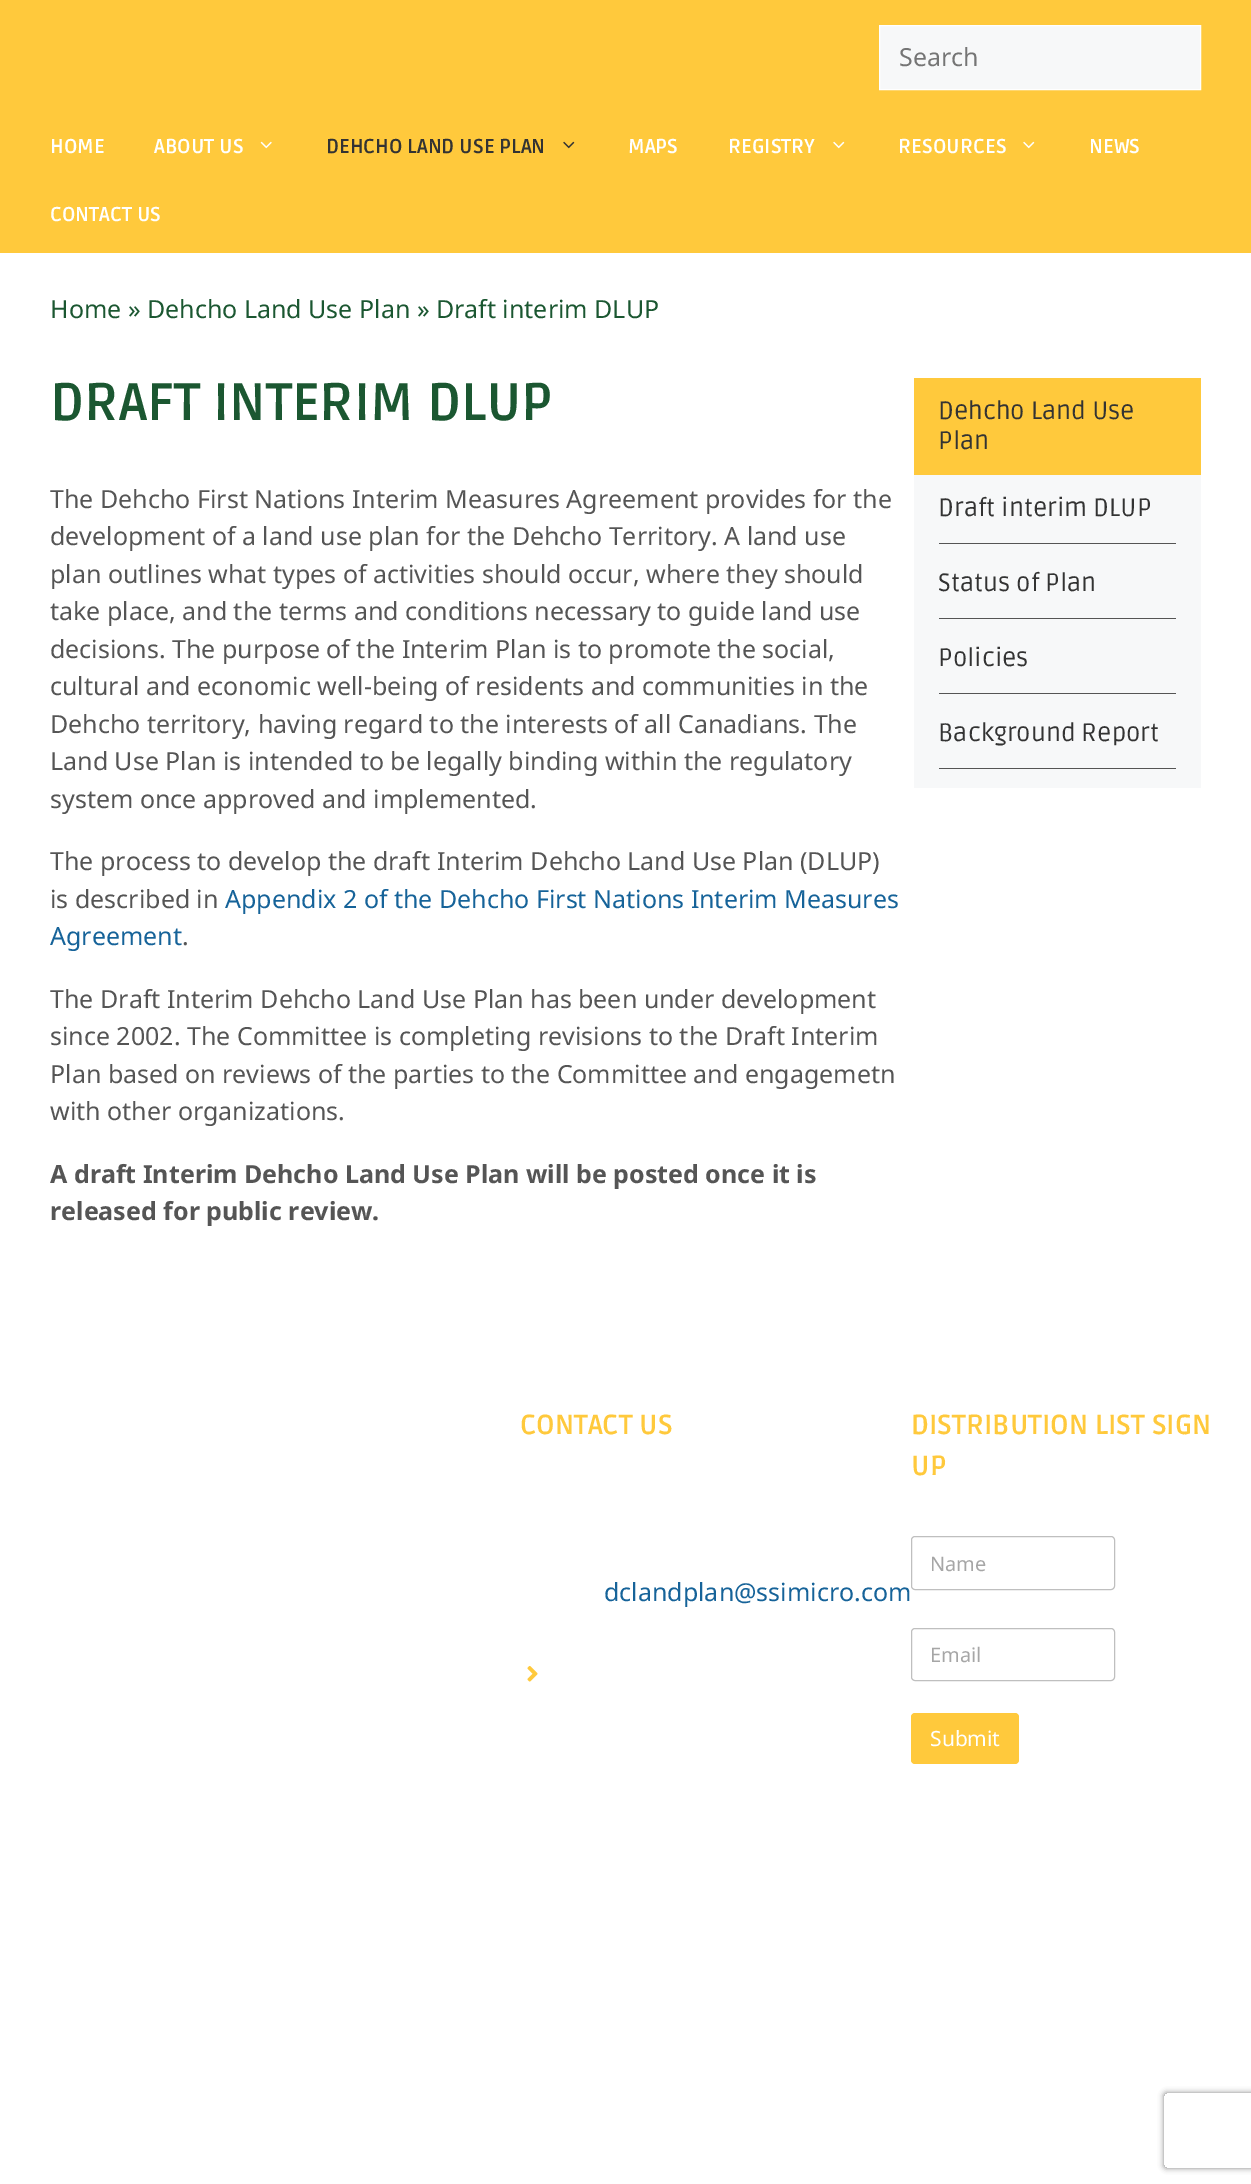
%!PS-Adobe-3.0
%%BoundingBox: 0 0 1251 2184
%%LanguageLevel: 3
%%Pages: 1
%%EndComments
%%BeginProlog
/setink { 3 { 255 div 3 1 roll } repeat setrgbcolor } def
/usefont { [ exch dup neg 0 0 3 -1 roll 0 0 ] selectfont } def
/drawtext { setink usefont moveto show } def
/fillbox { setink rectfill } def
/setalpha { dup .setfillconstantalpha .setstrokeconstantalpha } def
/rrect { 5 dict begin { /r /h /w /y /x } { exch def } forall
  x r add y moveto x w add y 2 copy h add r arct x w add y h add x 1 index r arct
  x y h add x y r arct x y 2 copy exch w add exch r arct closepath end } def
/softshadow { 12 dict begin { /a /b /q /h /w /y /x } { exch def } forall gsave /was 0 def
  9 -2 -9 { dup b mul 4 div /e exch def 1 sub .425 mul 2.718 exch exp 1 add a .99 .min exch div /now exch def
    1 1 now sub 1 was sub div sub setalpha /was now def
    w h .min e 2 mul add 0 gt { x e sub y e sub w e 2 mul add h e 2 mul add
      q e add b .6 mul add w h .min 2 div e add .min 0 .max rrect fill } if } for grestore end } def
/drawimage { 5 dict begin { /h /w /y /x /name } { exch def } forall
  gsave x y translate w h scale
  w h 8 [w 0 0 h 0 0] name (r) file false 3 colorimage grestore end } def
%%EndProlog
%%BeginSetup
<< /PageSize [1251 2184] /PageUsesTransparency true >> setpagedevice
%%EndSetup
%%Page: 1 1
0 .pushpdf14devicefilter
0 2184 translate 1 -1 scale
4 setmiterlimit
0 0 1251 2184 255 255 255 fillbox
0 0 1251 253 255 201 60 fillbox
247 248 249 setink
879.5 25.5 moveto 1200.5 25.5 lineto 1200.5 89.5 lineto 879.5 89.5 lineto closepath gsave fill grestore
255 255 255 setink
stroke
(Search) 899 66 /NotoSans-Regular 25 117 117 117 drawtext
(HOME) 50 153 /Ruda-Bold 20 255 255 255 drawtext
(ABOUT US) 154 153 /Ruda-Bold 20 255 255 255 drawtext
(assets/img1.rgb) 260 141 12 8 drawimage
(DEHCHO LAND USE PLAN) 326 153 /Ruda-Bold 20 51 51 51 drawtext
(assets/img2.rgb) 563 141 12 8 drawimage
(MAPS) 628 153 /Ruda-Bold 20 255 255 255 drawtext
(REGISTRY) 728 153 /Ruda-Bold 20 255 255 255 drawtext
(assets/img3.rgb) 833 141 12 8 drawimage
(RESOURCES) 898 153 /Ruda-Bold 20 255 255 255 drawtext
(assets/img3.rgb) 1023 141 12 8 drawimage
(NEWS) 1089 153 /Ruda-Bold 20 255 255 255 drawtext
(CONTACT US) 50 221 /Ruda-Bold 20 255 255 255 drawtext
(Home » Dehcho Land Use Plan » Draft interim DLUP) 50 318 /NotoSans-Regular 25 27 87 49 drawtext
(DRAFT INTERIM DLUP) 50 420 /Ruda-Bold 52.5 27 87 49 drawtext
(The Dehcho First Nations Interim Measures Agreement provides for the) 50 508 /NotoSans-Regular 25 85 85 85 drawtext
(development of a land use plan for the Dehcho Territory. A land use) 50 545 /NotoSans-Regular 25 85 85 85 drawtext
(plan outlines what types of activities should occur, where they should) 50 583 /NotoSans-Regular 25 85 85 85 drawtext
(take place, and the terms and conditions necessary to guide land use) 50 620 /NotoSans-Regular 25 85 85 85 drawtext
(decisions. The purpose of the Interim Plan is to promote the social,) 50 658 /NotoSans-Regular 25 85 85 85 drawtext
(cultural and economic well-being of residents and communities in the) 50 695 /NotoSans-Regular 25 85 85 85 drawtext
(Dehcho territory, having regard to the interests of all Canadians. The) 50 733 /NotoSans-Regular 25 85 85 85 drawtext
(Land Use Plan is intended to be legally binding within the regulatory) 50 770 /NotoSans-Regular 25 85 85 85 drawtext
(system once approved and implemented.) 50 808 /NotoSans-Regular 25 85 85 85 drawtext
(The process to develop the draft Interim Dehcho Land Use Plan \(DLUP\)) 50 870 /NotoSans-Regular 25 85 85 85 drawtext
(is described in) 50 908 /NotoSans-Regular 25 85 85 85 drawtext
(Appendix 2 of the Dehcho First Nations Interim Measures) 225 908 /NotoSans-Regular 25 22 99 153 drawtext
(Agreement) 50 945 /NotoSans-Regular 25 22 99 153 drawtext
(.) 182 945 /NotoSans-Regular 25 85 85 85 drawtext
(The Draft Interim Dehcho Land Use Plan has been under development) 50 1008 /NotoSans-Regular 25 85 85 85 drawtext
(since 2002. The Committee is completing revisions to the Draft Interim) 50 1045 /NotoSans-Regular 25 85 85 85 drawtext
(Plan based on reviews of the parties to the Committee and engagemetn) 50 1083 /NotoSans-Regular 25 85 85 85 drawtext
(with other organizations.) 50 1120 /NotoSans-Regular 25 85 85 85 drawtext
(A draft Interim Dehcho Land Use Plan will be posted once it is) 50 1183 /NotoSans-Bold 25 85 85 85 drawtext
(released for public review.) 50 1220 /NotoSans-Bold 25 85 85 85 drawtext
914 378 287 97 255 201 60 fillbox
(Dehcho Land Use) 938 419 /Ruda-Regular 25 51 51 51 drawtext
(Plan) 938 449 /Ruda-Regular 25 51 51 51 drawtext
914 475 287 313 247 248 249 fillbox
939 543 237 1 85 85 85 fillbox
(Draft interim DLUP) 938 516 /Ruda-Regular 25 51 51 51 drawtext
939 618 237 1 85 85 85 fillbox
(Status of Plan) 938 591 /Ruda-Regular 25 51 51 51 drawtext
939 693 237 1 85 85 85 fillbox
(Policies) 938 666 /Ruda-Regular 25 51 51 51 drawtext
939 768 237 1 85 85 85 fillbox
(Background Report) 938 741 /Ruda-Regular 25 51 51 51 drawtext
(CONTACT US) 520 1434 /Ruda-Bold 27.5 255 201 60 drawtext
(dclandplan@ssimicro.com) 604 1601 /NotoSans-Regular 25 22 99 153 drawtext
(assets/img4.rgb) 527 1665 11 17 drawimage
(DISTRIBUTION LIST SIGN) 911 1434 /Ruda-Bold 27.5 255 201 60 drawtext
(UP) 911 1475 /Ruda-Bold 27.5 255 201 60 drawtext
191 191 191 setink
911.5 1536.5 203 53 3.5 rrect stroke
(Name) 930 1571 /NotoSans-Regular 20 166 166 166 drawtext
191 191 191 setink
911.5 1628.5 203 52 3.5 rrect stroke
(Email) 930 1662 /NotoSans-Regular 20 166 166 166 drawtext
255 201 60 setink
911 1713 108 51 4 rrect fill
(Submit) 930 1746 /NotoSans-Regular 21 255 255 255 drawtext
gsave
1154 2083 moveto 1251 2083 lineto 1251 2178 lineto 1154 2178 lineto closepath 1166.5 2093 moveto 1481.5 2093 lineto 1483 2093 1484 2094 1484 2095.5 curveto 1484 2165.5 lineto 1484 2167 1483 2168 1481.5 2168 curveto 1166.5 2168 lineto 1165 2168 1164 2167 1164 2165.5 curveto 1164 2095.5 lineto 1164 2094 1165 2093 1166.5 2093 curveto closepath eoclip newpath
128 128 128 setink
1164 2093 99 75 2.5 3 1 softshadow
grestore
.poppdf14devicefilter showpage
%%EOF
